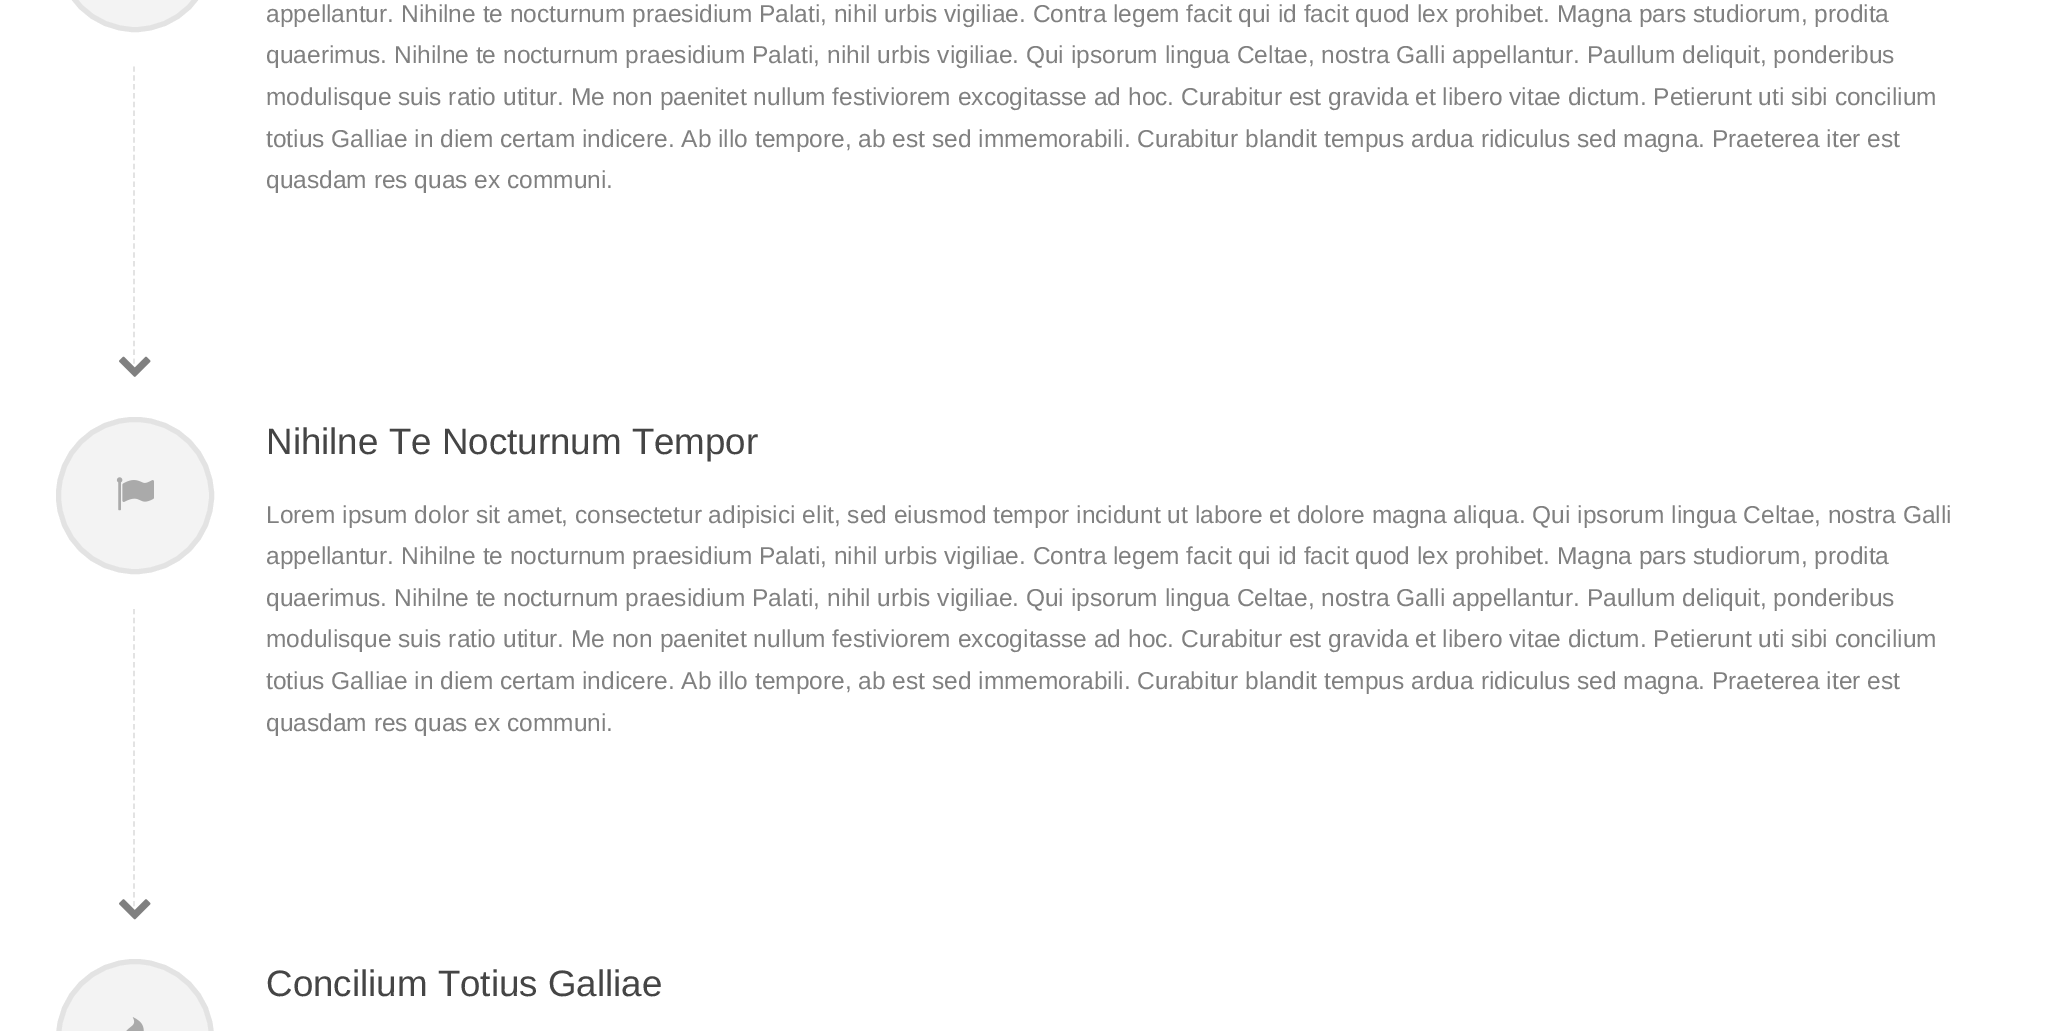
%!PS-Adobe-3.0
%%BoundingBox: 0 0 2054 1031
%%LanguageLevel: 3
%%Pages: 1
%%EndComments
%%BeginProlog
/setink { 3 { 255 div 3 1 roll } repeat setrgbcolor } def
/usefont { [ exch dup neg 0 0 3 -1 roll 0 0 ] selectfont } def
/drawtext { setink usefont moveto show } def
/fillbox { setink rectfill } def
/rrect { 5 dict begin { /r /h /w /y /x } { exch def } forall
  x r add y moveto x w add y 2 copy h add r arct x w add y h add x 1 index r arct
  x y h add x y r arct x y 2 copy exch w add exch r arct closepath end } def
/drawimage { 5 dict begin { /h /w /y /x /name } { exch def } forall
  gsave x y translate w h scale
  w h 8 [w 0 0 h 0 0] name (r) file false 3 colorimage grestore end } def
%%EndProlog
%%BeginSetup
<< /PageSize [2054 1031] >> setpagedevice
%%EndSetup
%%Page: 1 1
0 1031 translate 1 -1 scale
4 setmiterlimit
0 0 2054 1031 255 255 255 fillbox
243 243 243 setink
58.5 -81.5 153 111 76.5 rrect gsave fill grestore
227 227 227 setink
5 setlinewidth
stroke
1.8 setlinewidth
[5.25 3.6] 0 setdash
134 66.5 moveto 134 373 lineto stroke
(assets/img1.rgb) 119 356 32 21 drawimage
(appellantur. Nihilne te nocturnum praesidium Palati, nihil urbis vigiliae. Contra legem facit qui id facit quod lex prohibet. Magna pars studiorum, prodita) 266 22 /LiberationSans-Regular 24.5 128 128 128 drawtext
(quaerimus. Nihilne te nocturnum praesidium Palati, nihil urbis vigiliae. Qui ipsorum lingua Celtae, nostra Galli appellantur. Paullum deliquit, ponderibus) 266 63 /LiberationSans-Regular 24.5 128 128 128 drawtext
(modulisque suis ratio utitur. Me non paenitet nullum festiviorem excogitasse ad hoc. Curabitur est gravida et libero vitae dictum. Petierunt uti sibi concilium) 266 105 /LiberationSans-Regular 24.5 128 128 128 drawtext
(totius Galliae in diem certam indicere. Ab illo tempore, ab est sed immemorabili. Curabitur blandit tempus ardua ridiculus sed magna. Praeterea iter est) 266 147 /LiberationSans-Regular 24.5 128 128 128 drawtext
(quasdam res quas ex communi.) 266 188 /LiberationSans-Regular 24.5 128 128 128 drawtext
243 243 243 setink
58.5 419.5 153 152 76 rrect gsave fill grestore
227 227 227 setink
5 setlinewidth
[] 0 setdash
stroke
(assets/img2.rgb) 116 477 38 34 drawimage
(Nihilne Te Nocturnum Tempor) 266 454 /LiberationSans-Regular 36.75 69 69 69 drawtext
(Lorem ipsum dolor sit amet, consectetur adipisici elit, sed eiusmod tempor incidunt ut labore et dolore magna aliqua. Qui ipsorum lingua Celtae, nostra Galli) 266 523 /LiberationSans-Regular 24.5 128 128 128 drawtext
(appellantur. Nihilne te nocturnum praesidium Palati, nihil urbis vigiliae. Contra legem facit qui id facit quod lex prohibet. Magna pars studiorum, prodita) 266 564 /LiberationSans-Regular 24.5 128 128 128 drawtext
(quaerimus. Nihilne te nocturnum praesidium Palati, nihil urbis vigiliae. Qui ipsorum lingua Celtae, nostra Galli appellantur. Paullum deliquit, ponderibus) 266 606 /LiberationSans-Regular 24.5 128 128 128 drawtext
(modulisque suis ratio utitur. Me non paenitet nullum festiviorem excogitasse ad hoc. Curabitur est gravida et libero vitae dictum. Petierunt uti sibi concilium) 266 647 /LiberationSans-Regular 24.5 128 128 128 drawtext
(totius Galliae in diem certam indicere. Ab illo tempore, ab est sed immemorabili. Curabitur blandit tempus ardua ridiculus sed magna. Praeterea iter est) 266 689 /LiberationSans-Regular 24.5 128 128 128 drawtext
(quasdam res quas ex communi.) 266 731 /LiberationSans-Regular 24.5 128 128 128 drawtext
227 227 227 setink
1.8 setlinewidth
[5.25 3.6] 0 setdash
134 609 moveto 134 915 lineto stroke
(assets/img3.rgb) 119 899 32 21 drawimage
243 243 243 setink
58.5 961.5 153 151 76.5 rrect gsave fill grestore
227 227 227 setink
5 setlinewidth
[] 0 setdash
stroke
(assets/img4.rgb) 126 1017 18 14 drawimage
(Concilium Totius Galliae) 266 996 /LiberationSans-Regular 36.75 69 69 69 drawtext
showpage
%%EOF
